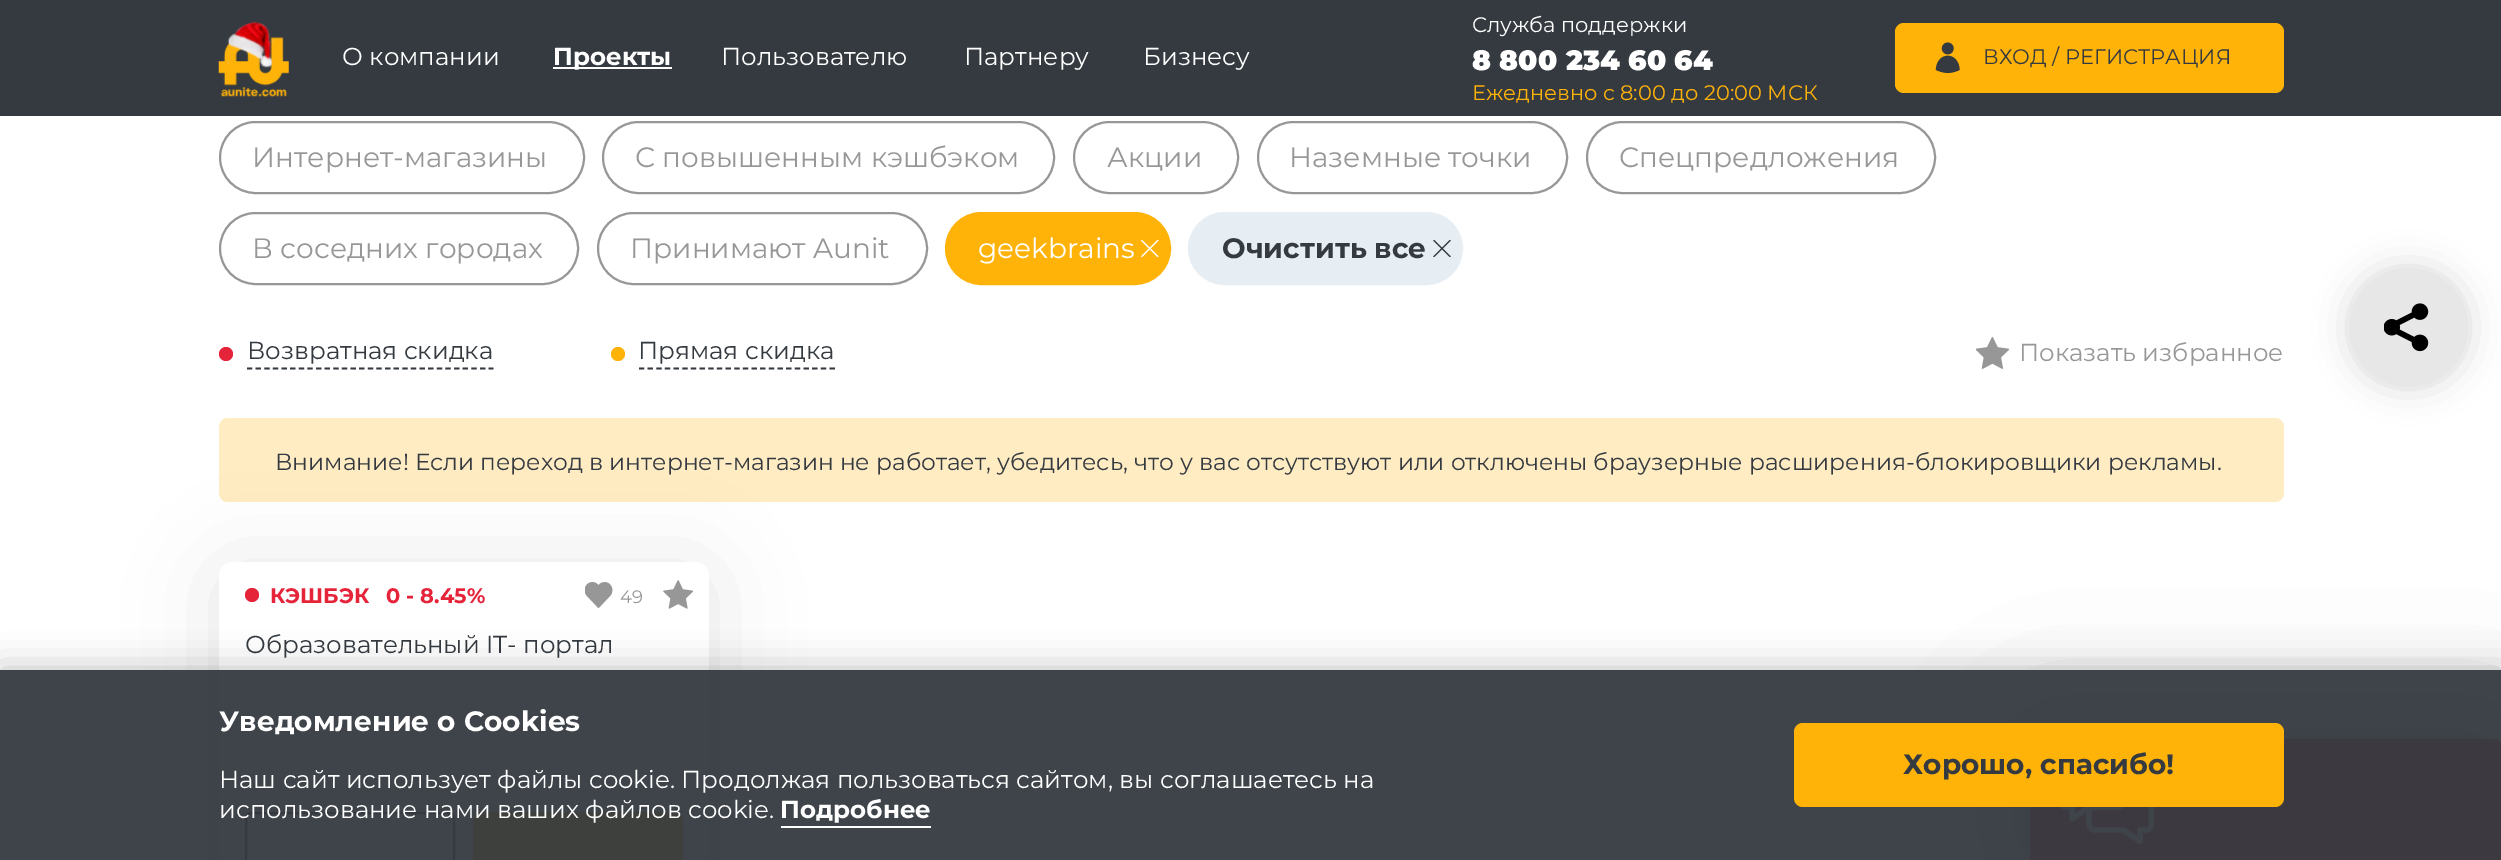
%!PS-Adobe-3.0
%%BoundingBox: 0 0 2501 860
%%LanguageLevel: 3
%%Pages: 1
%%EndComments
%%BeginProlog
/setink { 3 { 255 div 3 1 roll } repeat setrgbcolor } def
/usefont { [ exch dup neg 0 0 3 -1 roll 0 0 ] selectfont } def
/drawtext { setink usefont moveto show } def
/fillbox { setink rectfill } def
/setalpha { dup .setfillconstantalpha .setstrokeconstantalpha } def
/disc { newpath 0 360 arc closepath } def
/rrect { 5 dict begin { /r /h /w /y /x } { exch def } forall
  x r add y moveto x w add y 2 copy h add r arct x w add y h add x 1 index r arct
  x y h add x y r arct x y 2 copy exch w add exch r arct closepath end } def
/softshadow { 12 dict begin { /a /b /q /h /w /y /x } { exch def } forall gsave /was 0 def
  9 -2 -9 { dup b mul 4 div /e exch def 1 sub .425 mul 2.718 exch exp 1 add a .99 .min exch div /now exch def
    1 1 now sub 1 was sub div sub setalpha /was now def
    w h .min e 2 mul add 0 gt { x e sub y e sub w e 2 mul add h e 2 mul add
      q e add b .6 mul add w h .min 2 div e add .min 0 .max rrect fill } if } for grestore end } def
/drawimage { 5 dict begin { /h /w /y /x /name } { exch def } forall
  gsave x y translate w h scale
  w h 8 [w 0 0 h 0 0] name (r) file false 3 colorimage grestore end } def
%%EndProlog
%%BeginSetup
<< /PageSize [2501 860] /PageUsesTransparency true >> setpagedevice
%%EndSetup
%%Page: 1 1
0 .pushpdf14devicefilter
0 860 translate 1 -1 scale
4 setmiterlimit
0 0 2501 860 255 255 255 fillbox
0 0 2501 116 52 58 64 fillbox
(assets/img1.rgb) 218 21 71 76 drawimage
(О компании) 342 65 /Montserrat-Regular 24.5 255 255 255 drawtext
553 67 119 2 255 255 255 fillbox
(Проекты) 553 65 /Montserrat-Bold 24.5 255 255 255 drawtext
(Пользователю) 721 65 /Montserrat-Regular 24.5 255 255 255 drawtext
(Партнеру) 964 65 /Montserrat-Regular 24.5 255 255 255 drawtext
(Бизнесу) 1143 65 /Montserrat-Regular 24.5 255 255 255 drawtext
(Служба поддержки) 1472 32 /Montserrat-Regular 21 255 255 255 drawtext
(8 800 234 60 64) 1472 70 /Montserrat-Black 28 255 255 255 drawtext
(Ежедневно с 8:00 до 20:00 МСК) 1472 100 /Montserrat-Regular 21 255 178 8 drawtext
1895 23 389 70 9 rrect fill
(assets/img2.rgb) 1935 42 25 32 drawimage
(ВХОД / РЕГИСТРАЦИЯ) 1983 64 /Montserrat-Regular 21 52 58 64 drawtext
151 151 151 setink
2 setlinewidth
220 122 364 71 35.5 rrect stroke
(Интернет-магазины) 252 167 /Montserrat-Regular 28 151 151 151 drawtext
603 122 451 71 35.5 rrect stroke
(С повышенным кэшбэком) 635 167 /Montserrat-Regular 28 151 151 151 drawtext
1074 122 164 71 35.5 rrect stroke
(Акции) 1107 167 /Montserrat-Regular 28 151 151 151 drawtext
1258 122 309 71 35.5 rrect stroke
(Наземные точки) 1289 167 /Montserrat-Regular 28 151 151 151 drawtext
1587 122 348 71 35.5 rrect stroke
(Спецпредложения) 1619 167 /Montserrat-Regular 28 151 151 151 drawtext
220 213 358 71 35.5 rrect stroke
(В соседних городах) 252 258 /Montserrat-Regular 28 151 151 151 drawtext
598 213 329 71 35.5 rrect stroke
(Принимают Aunit) 630 258 /Montserrat-Regular 28 151 151 151 drawtext
255 178 8 setink
946 213 224 71 35.5 rrect gsave fill grestore
stroke
(geekbrains) 978 258 /Montserrat-Regular 28 255 255 255 drawtext
(assets/img3.rgb) 1141 240 18 17 drawimage
230 237 243 setink
1189 213 273 71 35.5 rrect gsave fill grestore
stroke
(Очистить все) 1222 258 /Montserrat-Bold 28 52 58 64 drawtext
(assets/img4.rgb) 1433 240 18 17 drawimage
229 36 58 setink
226 354 7 disc fill
52 58 64 setink
1.8 setlinewidth
[5.25 3.38] 0 setdash
247 368.5 moveto 493.5 368.5 lineto stroke
(Возвратная скидка) 247 359 /Montserrat-Regular 24.5 52 58 64 drawtext
255 178 8 setink
618 354 7 disc fill
52 58 64 setink
[5.25 3.41] 0 setdash
639 368.5 moveto 835 368.5 lineto stroke
(Прямая скидка) 638 359 /Montserrat-Regular 24.5 52 58 64 drawtext
(assets/img5.rgb) 1976 337 33 32 drawimage
(Показать избранное) 2019 361 /Montserrat-Regular 24.5 151 151 151 drawtext
255 236 194 setink
219 418 2065 84 9 rrect fill
(Внимание! Если переход в интернет-магазин не работает, убедитесь, что у вас отсутствуют или отключены браузерные расширения-блокировщики рекламы.) 275 470 /Montserrat-Regular 23.33 52 58 64 drawtext
0 0 0 setink
219 569 490 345 14 44 0.1 softshadow
255 255 255 setink
219 562 490 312 14 rrect fill
229 36 58 setink
252 595 7 disc fill
(КЭШБЭК) 270 603 /Montserrat-Bold 21 229 36 58 drawtext
(0 - 8.45%) 386 603 /Montserrat-Bold 21 229 36 58 drawtext
(assets/img6.rgb) 585 581 28 27 drawimage
(49) 620 603 /Montserrat-Regular 18 151 151 151 drawtext
(assets/img7.rgb) 663 580 30 29 drawimage
(Образовательный IT- портал) 245 653 /Montserrat-Regular 24.5 52 58 64 drawtext
2 setlinewidth
[] 0 setdash
246 813 208 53 4 rrect stroke
255 178 8 setink
473 812 210 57 9 rrect fill
0 0 0 setink
2349 268 119 119 59.5 17.5 0.15 softshadow
231 231 231 setink
2408.5 327.5 59.5 disc fill
(assets/img8.rgb) 2384 303 45 49 drawimage
0 0 0 setink
2030 746 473 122 9 70 0.25 softshadow
229 36 58 setink
2039 739 moveto 2494 739 lineto 2499 739 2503 743 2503 748 curveto 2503 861 lineto 2030 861 lineto 2030 748 lineto 2030 743 2034 739 2039 739 curveto closepath fill
(assets/img9.rgb) 2060 807 94 38 drawimage
gsave
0 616 moveto 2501 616 lineto 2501 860 lineto 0 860 lineto closepath 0 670 moveto 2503 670 lineto 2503 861 lineto 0 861 lineto closepath eoclip newpath
0 0 0 setink
0 670 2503 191 0 17.5 0.25 softshadow
grestore
0.95 setalpha
0 670 2501 190 52 58 64 fillbox
1 setalpha
(Уведомление о Cookies) 219 731 /Montserrat-Bold 28 255 255 255 drawtext
(Наш сайт использует файлы cookie. Продолжая пользоваться сайтом, вы соглашаетесь на) 219 788 /Montserrat-Regular 24.5 255 255 255 drawtext
(использование нами ваших файлов cookie.) 219 818 /Montserrat-Regular 24.5 255 255 255 drawtext
(Подробнее) 780 818 /Montserrat-Bold 24.5 255 255 255 drawtext
781 826 150 2 255 255 255 fillbox
255 178 8 setink
1794 723 490 84 9 rrect fill
(Хорошо, спасибо!) 1903 774 /Montserrat-Bold 28 52 58 64 drawtext
.poppdf14devicefilter showpage
%%EOF
